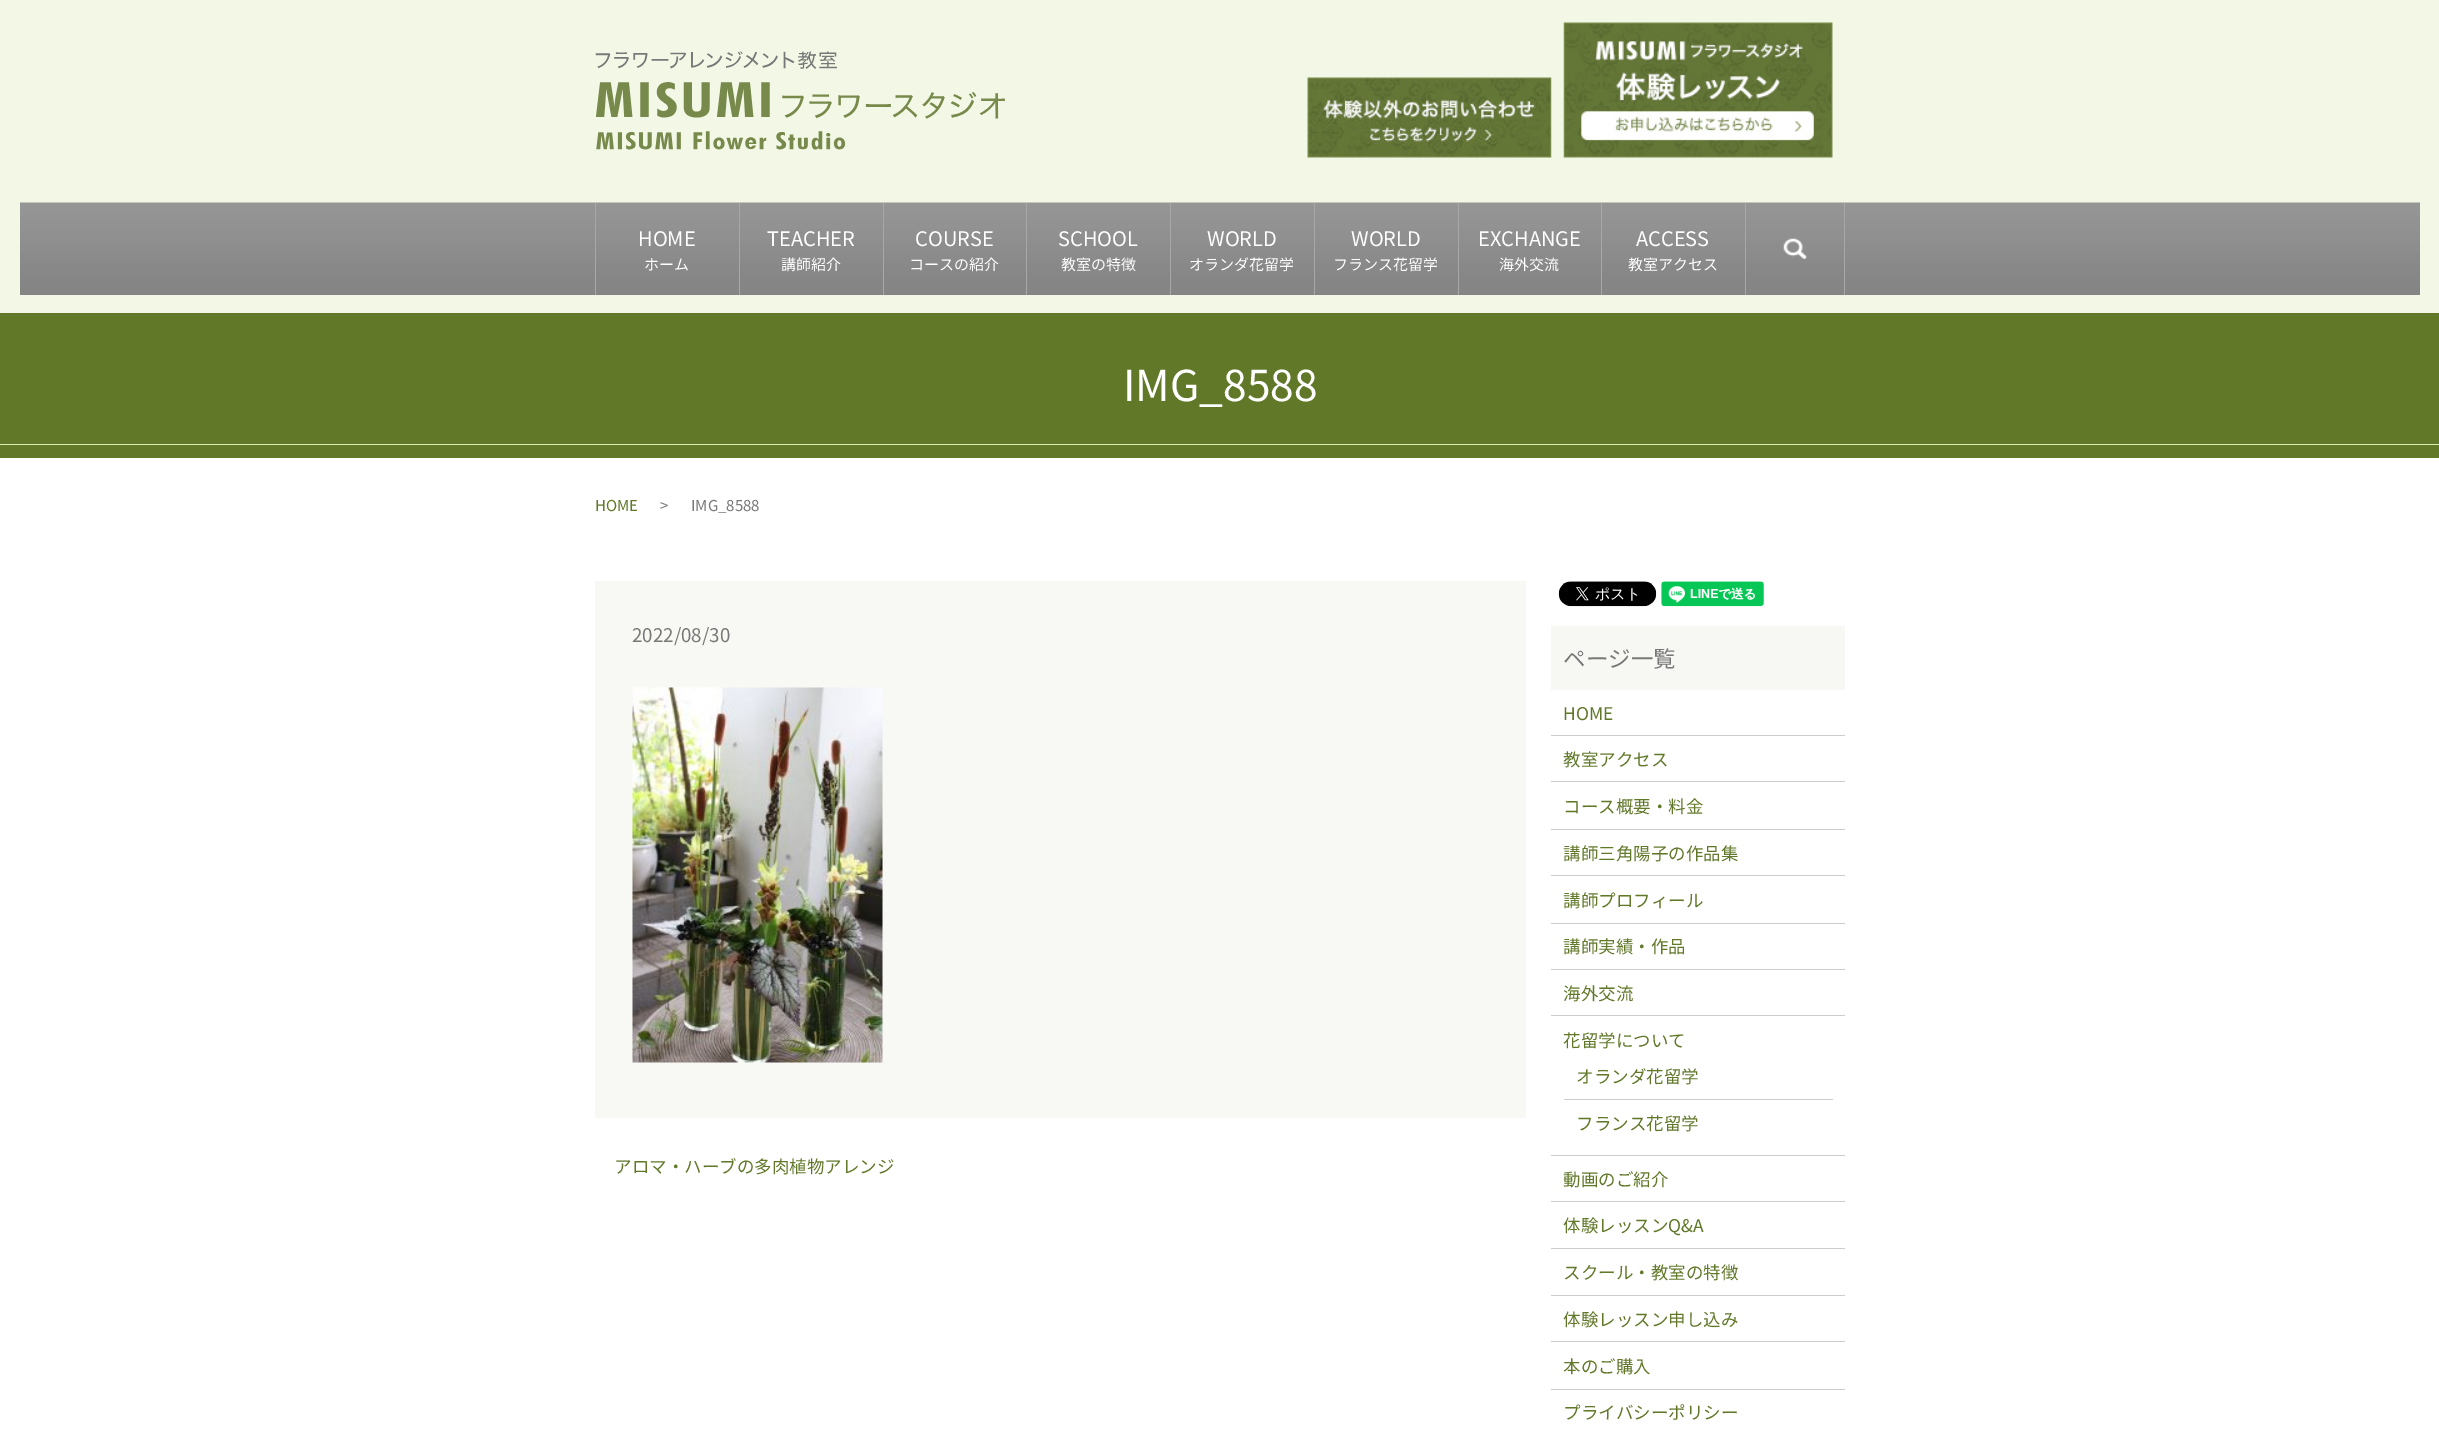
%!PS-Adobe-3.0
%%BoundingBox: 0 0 2439 1434
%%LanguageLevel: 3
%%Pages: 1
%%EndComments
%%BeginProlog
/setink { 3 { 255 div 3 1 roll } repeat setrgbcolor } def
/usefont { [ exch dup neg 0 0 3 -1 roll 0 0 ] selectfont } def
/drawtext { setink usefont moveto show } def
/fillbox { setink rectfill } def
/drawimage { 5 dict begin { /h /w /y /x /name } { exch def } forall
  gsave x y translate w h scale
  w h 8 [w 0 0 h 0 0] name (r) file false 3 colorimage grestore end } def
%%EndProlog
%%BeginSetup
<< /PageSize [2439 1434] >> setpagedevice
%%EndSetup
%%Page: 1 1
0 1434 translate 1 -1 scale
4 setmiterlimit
0 0 2439 1434 255 255 255 fillbox
0 0 2439 313 243 248 230 fillbox
(assets/img1.rgb) 20 202 2400 93 drawimage
(assets/img2.rgb) 595 51 410 99 drawimage
(assets/img3.rgb) 1307 77 245 81 drawimage
(assets/img4.rgb) 1563 22 270 136 drawimage
595 203 1 92 168 168 168 fillbox
(HOME) 638 246 /NotoSansJP-Regular 20 255 255 255 drawtext
(ホーム) 644 270 /NotoSansJP-Regular 15 255 255 255 drawtext
739 203 1 92 168 168 168 fillbox
(TEACHER) 767 246 /NotoSansJP-Regular 20 255 255 255 drawtext
(講師紹介) 781 270 /NotoSansJP-Regular 15 255 255 255 drawtext
883 203 1 92 168 168 168 fillbox
(COURSE) 915 246 /NotoSansJP-Regular 20 255 255 255 drawtext
(コースの紹介) 909 270 /NotoSansJP-Regular 15 255 255 255 drawtext
1026 203 1 92 168 168 168 fillbox
(SCHOOL) 1058 246 /NotoSansJP-Regular 20 255 255 255 drawtext
(教室の特徴) 1061 270 /NotoSansJP-Regular 15 255 255 255 drawtext
1170 203 1 92 168 168 168 fillbox
(WORLD) 1207 246 /NotoSansJP-Regular 20 255 255 255 drawtext
(オランダ花留学) 1189 270 /NotoSansJP-Regular 15 255 255 255 drawtext
1314 203 1 92 168 168 168 fillbox
(WORLD) 1351 246 /NotoSansJP-Regular 20 255 255 255 drawtext
(フランス花留学) 1333 270 /NotoSansJP-Regular 15 255 255 255 drawtext
1458 203 1 92 168 168 168 fillbox
(EXCHANGE) 1478 246 /NotoSansJP-Regular 20 255 255 255 drawtext
(海外交流) 1499 270 /NotoSansJP-Regular 15 255 255 255 drawtext
1601 203 1 92 168 168 168 fillbox
(ACCESS) 1636 246 /NotoSansJP-Regular 20 255 255 255 drawtext
(教室アクセス) 1628 270 /NotoSansJP-Regular 15 255 255 255 drawtext
1745 203 1 92 168 168 168 fillbox
(assets/img5.rgb) 1783 238 24 21 drawimage
1844 203 1 92 168 168 168 fillbox
0 313 2439 145 96 120 40 fillbox
(IMG_8588) 1123 401 /NotoSansJP-Regular 42.5 255 255 255 drawtext
0 444 2439 1 217 237 173 fillbox
(HOME) 595 511 /NotoSansJP-Regular 15 96 120 40 drawtext
(>) 660 511 /NotoSansJP-Regular 15 120 120 120 drawtext
(IMG_8588) 691 511 /NotoSansJP-Regular 15 120 120 120 drawtext
595 581 931 537 248 249 245 fillbox
(2022/08/30) 632 642 /NotoSansJP-Regular 18.75 120 120 120 drawtext
(assets/img6.rgb) 632 687 251 376 drawimage
(アロマ・ハーブの多肉植物アレンジ) 614 1173 /NotoSansJP-Regular 17.5 96 120 40 drawtext
(assets/img7.rgb) 1558 581 99 26 drawimage
(assets/img8.rgb) 1661 581 103 26 drawimage
1551 626 294 64 247 248 244 fillbox
(ページ一覧) 1563 667 /NotoSansJP-Regular 22.5 120 120 120 drawtext
1551 735 294 1 204 204 204 fillbox
(HOME) 1563 720 /NotoSansJP-Regular 17.5 96 120 40 drawtext
1551 781 294 1 204 204 204 fillbox
(教室アクセス) 1563 766 /NotoSansJP-Regular 17.5 96 120 40 drawtext
1551 829 294 1 204 204 204 fillbox
(コース概要・料金) 1563 813 /NotoSansJP-Regular 17.5 96 120 40 drawtext
1551 875 294 1 204 204 204 fillbox
(講師三角陽子の作品集) 1563 860 /NotoSansJP-Regular 17.5 96 120 40 drawtext
1551 923 294 1 204 204 204 fillbox
(講師プロフィール) 1563 907 /NotoSansJP-Regular 17.5 96 120 40 drawtext
1551 969 294 1 204 204 204 fillbox
(講師実績・作品) 1563 953 /NotoSansJP-Regular 17.5 96 120 40 drawtext
1551 1015 294 1 204 204 204 fillbox
(海外交流) 1563 1000 /NotoSansJP-Regular 17.5 96 120 40 drawtext
1551 1155 294 1 204 204 204 fillbox
(花留学について) 1563 1047 /NotoSansJP-Regular 17.5 96 120 40 drawtext
1564 1099 269 1 204 204 204 fillbox
(オランダ花留学) 1576 1083 /NotoSansJP-Regular 17.5 96 120 40 drawtext
(フランス花留学) 1576 1130 /NotoSansJP-Regular 17.5 96 120 40 drawtext
1551 1201 294 1 204 204 204 fillbox
(動画のご紹介) 1563 1186 /NotoSansJP-Regular 17.5 96 120 40 drawtext
1551 1248 294 1 204 204 204 fillbox
(体験レッスンQ&A) 1563 1232 /NotoSansJP-Regular 17.5 96 120 40 drawtext
1551 1295 294 1 204 204 204 fillbox
(スクール・教室の特徴) 1563 1279 /NotoSansJP-Regular 17.5 96 120 40 drawtext
1551 1341 294 1 204 204 204 fillbox
(体験レッスン申し込み) 1563 1326 /NotoSansJP-Regular 17.5 96 120 40 drawtext
1551 1389 294 1 204 204 204 fillbox
(本のご購入) 1563 1373 /NotoSansJP-Regular 17.5 96 120 40 drawtext
(プライバシーポリシー) 1563 1419 /NotoSansJP-Regular 17.5 96 120 40 drawtext
showpage
%%EOF
